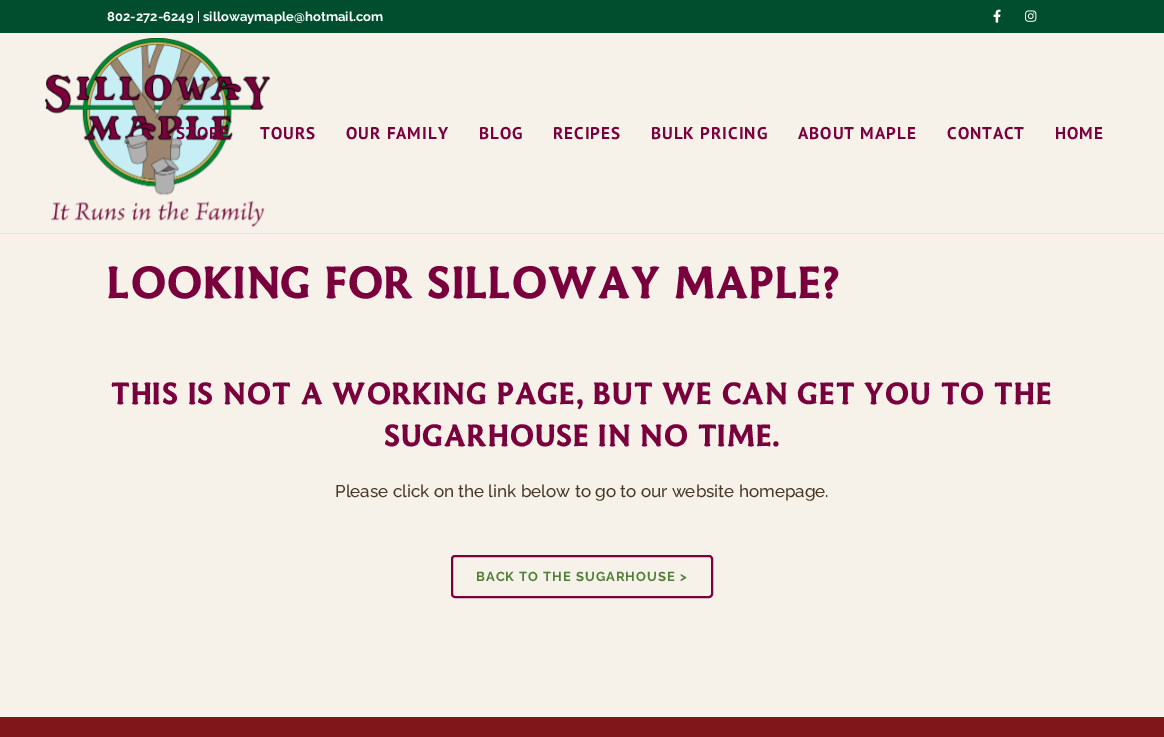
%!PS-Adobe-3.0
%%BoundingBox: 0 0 1164 737
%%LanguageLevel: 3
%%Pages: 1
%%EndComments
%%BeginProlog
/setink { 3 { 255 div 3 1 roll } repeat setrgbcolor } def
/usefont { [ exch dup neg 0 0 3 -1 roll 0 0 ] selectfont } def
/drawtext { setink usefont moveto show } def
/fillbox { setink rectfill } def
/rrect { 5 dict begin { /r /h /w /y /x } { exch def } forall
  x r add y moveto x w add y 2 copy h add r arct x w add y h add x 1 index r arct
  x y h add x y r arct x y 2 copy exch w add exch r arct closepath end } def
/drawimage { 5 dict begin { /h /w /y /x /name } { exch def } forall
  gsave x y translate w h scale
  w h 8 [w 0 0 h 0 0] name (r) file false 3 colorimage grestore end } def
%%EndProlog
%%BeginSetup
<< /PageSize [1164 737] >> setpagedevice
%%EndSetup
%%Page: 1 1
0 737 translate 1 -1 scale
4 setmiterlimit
0 0 1164 737 246 242 234 fillbox
0 0 1164 33 1 78 46 fillbox
(802-272-6249) 107 21 /Raleway-Bold 13 255 255 255 drawtext
(|) 197 21 /Raleway-Medium 13 255 255 255 drawtext
(sillowaymaple@hotmail.com) 203 21 /Raleway-Bold 13 255 255 255 drawtext
(assets/img1.rgb) 993 9 8 14 drawimage
(assets/img2.rgb) 1025 10 12 12 drawimage
0 233 1164 1 247 225 191 fillbox
(assets/img3.rgb) 45 38 225 189 drawimage
/PTSans-Bold 17 usefont
122 0 61 setink
176 139 moveto 1 0 (STORE) ashow
260 139 moveto 1 0 (TOURS) ashow
346 139 moveto 1 0 (OUR FAMILY) ashow
479 139 moveto 1 0 (BLOG) ashow
553 139 moveto 1 0 (RECIPES) ashow
651 139 moveto 1 0 (BULK PRICING) ashow
798 139 moveto 1 0 (ABOUT MAPLE) ashow
947 139 moveto 1 0 (CONTACT) ashow
1055 139 moveto 1 0 (HOME) ashow
/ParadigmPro-Bold 47 usefont
107 298 moveto 1 0 (LOOKING FOR SILLOWAY MAPLE?) ashow
/ParadigmPro-Bold 32 usefont
111 404 moveto 1 0 (THIS IS NOT A WORKING PAGE, BUT WE CAN GET YOU TO THE) ashow
384 446 moveto 1 0 (SUGARHOUSE IN NO TIME.) ashow
(Please click on the link below to go to our website homepage.) 335 497 /Raleway-Medium 17 74 55 38 drawtext
122 0 61 setink
2 setlinewidth
452 556 260 41 3 rrect stroke
/Raleway-Bold 13 usefont
81 126 53 setink
476 581 moveto 1 0 (BACK TO THE SUGARHOUSE >) ashow
0 717 1164 20 129 22 26 fillbox
showpage
%%EOF
